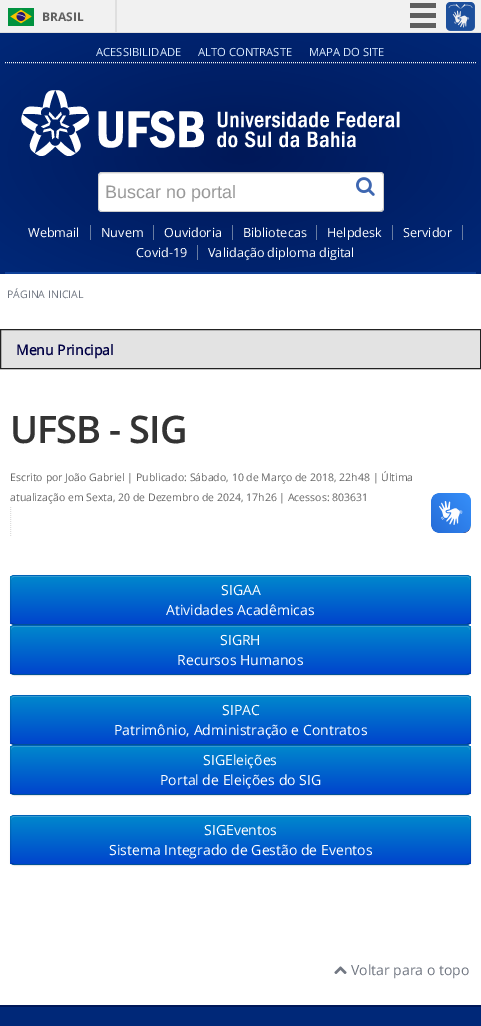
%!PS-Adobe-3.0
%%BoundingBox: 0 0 481 1026
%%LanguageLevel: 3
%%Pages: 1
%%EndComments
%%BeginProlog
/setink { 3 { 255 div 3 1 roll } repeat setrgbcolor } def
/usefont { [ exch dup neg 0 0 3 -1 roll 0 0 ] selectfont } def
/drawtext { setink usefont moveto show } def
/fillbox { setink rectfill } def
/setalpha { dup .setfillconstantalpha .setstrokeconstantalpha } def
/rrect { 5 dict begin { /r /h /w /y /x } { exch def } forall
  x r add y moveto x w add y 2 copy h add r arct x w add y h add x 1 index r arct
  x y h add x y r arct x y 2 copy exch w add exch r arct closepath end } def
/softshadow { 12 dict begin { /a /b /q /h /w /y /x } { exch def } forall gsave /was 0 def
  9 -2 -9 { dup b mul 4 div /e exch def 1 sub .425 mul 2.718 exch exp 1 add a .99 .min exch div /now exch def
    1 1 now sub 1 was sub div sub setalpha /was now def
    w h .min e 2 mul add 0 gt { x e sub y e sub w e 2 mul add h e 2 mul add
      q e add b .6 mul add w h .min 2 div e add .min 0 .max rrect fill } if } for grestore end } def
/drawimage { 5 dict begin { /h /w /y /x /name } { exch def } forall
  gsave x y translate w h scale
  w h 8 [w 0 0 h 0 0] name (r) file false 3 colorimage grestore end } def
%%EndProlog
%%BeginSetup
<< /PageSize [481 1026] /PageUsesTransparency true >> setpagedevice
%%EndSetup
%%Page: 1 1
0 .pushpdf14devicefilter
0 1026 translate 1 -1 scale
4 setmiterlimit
0 0 481 1026 241 241 241 fillbox
0 32 481 1 223 223 223 fillbox
115 0 2 32 223 223 223 fillbox
(assets/img1.rgb) 8 8 26 18 drawimage
(BRASIL) 42 21 /OpenSans-Bold 12 96 96 96 drawtext
410 3 26 5 96 96 96 fillbox
410 13 26 5 96 96 96 fillbox
410 23 26 5 96 96 96 fillbox
(assets/img2.rgb) 446 2 29 29 drawimage
gsave 0 33 moveto 481 33 lineto 481 274 lineto 0 274 lineto closepath clip newpath 241 154 translate 340 170 scale
<< /ShadingType 3 /ColorSpace /DeviceRGB /Coords [0 0 0 0 0 1] /Extend [true true] /Function << /FunctionType 3 /Domain [0 1] /Functions [<< /FunctionType 2 /Domain [0 1] /C0 [0 0.094 0.345] /C1 [0 0.094 0.345] /N 1 >> << /FunctionType 2 /Domain [0 1] /C0 [0 0.094 0.345] /C1 [0 0.157 0.471] /N 1 >>] /Bounds [0.01] /Encode [0 1 0 1] >> >> shfill grestore
246 247 248 setink
[1 1] 0 setdash
5 62.5 moveto 476 62.5 lineto stroke
(ACESSIBILIDADE) 96 56 /OpenSans-Regular 11.25 220 236 255 drawtext
(ALTO CONTRASTE) 198 56 /OpenSans-Regular 11.25 220 236 255 drawtext
(MAPA DO SITE) 309 56 /OpenSans-Regular 11.25 220 236 255 drawtext
(assets/img3.rgb) 21 90 379 66 drawimage
255 255 255 setink
102 172 moveto 351 172 lineto 351 212 lineto 102 212 lineto 100 212 98 210 98 208 curveto 98 176 lineto 98 174 100 172 102 172 curveto closepath fill
236 236 236 setink
102 174 moveto 351 174 lineto 351 173 lineto 102 173 lineto 100 173 99 175 99 177 curveto 99 175 100 174 102 174 curveto closepath fill
204 204 204 setink
102 172 moveto 351 172 lineto 351 212 lineto 102 212 lineto 100 212 98 210 98 208 curveto 98 176 lineto 98 174 100 172 102 172 curveto closepath 102 173 moveto 351 173 lineto 351 211 lineto 102 211 lineto 100 211 99 210 99 208 curveto 99 176 lineto 99 174 100 173 102 173 curveto closepath eofill
(Buscar no portal) 105 198 /LiberationSans-Regular 18 153 153 153 drawtext
255 255 255 setink
350 172 moveto 380 172 lineto 382 172 384 174 384 176 curveto 384 208 lineto 384 210 382 212 380 212 curveto 350 212 lineto closepath fill
204 204 204 setink
350 172 moveto 350 173 lineto 380 173 lineto 381 173 382 173 382 174 curveto 383 173 lineto 382 172.5 381 172 380 172 curveto closepath fill
382 210 moveto 383 210 383 209 383 208 curveto 383 176 lineto 383 175 383 174 382 174 curveto 383 173 lineto 383.5 174 384 175 384 176 curveto 384 208 lineto 384 209 383.5 210 383 211 curveto closepath fill
179 179 179 setink
350 211 moveto 350 212 lineto 380 212 lineto 381 212 382 211.5 383 211 curveto 382 210 lineto 382 211 381 211 380 211 curveto closepath fill
(assets/img4.rgb) 356 177 19 19 drawimage
5 272 471 2 15 64 152 fillbox
90 225 1 15 104 124 161 fillbox
(Webmail) 28 237 /OpenSans-Regular 12.6 255 255 255 drawtext
153 225 1 15 104 124 161 fillbox
(Nuvem) 101 237 /OpenSans-Regular 12.6 255 255 255 drawtext
232 225 1 15 104 124 161 fillbox
(Ouvidoria) 164 237 /OpenSans-Regular 12.6 255 255 255 drawtext
316 225 1 15 104 124 161 fillbox
(Bibliotecas) 243 237 /OpenSans-Regular 12.6 255 255 255 drawtext
392 225 1 15 104 124 161 fillbox
(Helpdesk) 327 237 /OpenSans-Regular 12.6 255 255 255 drawtext
462 225 1 15 104 124 161 fillbox
(Servidor) 403 237 /OpenSans-Regular 12.6 255 255 255 drawtext
197 245 1 15 104 124 161 fillbox
(Covid-19) 136 257 /OpenSans-Regular 12.6 255 255 255 drawtext
(Validação diploma digital) 208 257 /OpenSans-Regular 12.6 255 255 255 drawtext
0 274 481 731 255 255 255 fillbox
(PÁGINA INICIAL) 7 298 /OpenSans-Regular 10.5 113 119 130 drawtext
227 227 227 setink
0.5 329.5 moveto 480.5 329.5 lineto 480.5 368.5 lineto 0.5 368.5 lineto closepath gsave fill grestore
34 34 34 setink
[] 0 setdash
stroke
(Menu Principal) 16 355 /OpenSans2-Bold 14 0 0 68 drawtext
/OpenSans-SemiBold 38 usefont
51 51 51 setink
10 443 moveto -1 0 (UFSB - SIG) ashow
(Escrito por João Gabriel | Publicado: Sábado, 10 de Março de 2018, 22h48 | Última) 10 481 /OpenSans-Regular 10.5 102 102 102 drawtext
(atualização em Sexta, 20 de Dezembro de 2024, 17h26 | Acessos: 803631) 10 501 /OpenSans-Regular 10.5 102 102 102 drawtext
221 221 221 setink
[1 1] 0 setdash
10.5 507 moveto 10.5 537 lineto stroke
0 0 0 setink
10 576 461 50 4 1 0.05 softshadow
0 109 204 setink
10 575 461 50 4 rrect fill
gsave
10 575 461 50 4 rrect clip newpath
gsave 10 576 moveto 471 576 lineto 471 624 lineto 10 624 lineto closepath clip newpath
<< /ShadingType 2 /ColorSpace /DeviceRGB /Coords [241 576 241 624] /Extend [true true] /Function << /FunctionType 2 /Domain [0 1] /C0 [0 0.533 0.8] /C1 [0 0.267 0.8] /N 1 >> >> shfill grestore
grestore
51 159 214 setink
14 577 moveto 467 577 lineto 469 577 470 578 470 580 curveto 470 578 469 576 467 576 curveto 13 576 lineto 11 578 lineto 11 580 lineto 11 578 12 577 14 577 curveto closepath fill
0.25 setalpha
0 0 0 setink
[] 0 setdash
469.5 623.5 moveto 467 624.5 lineto 14 624.5 lineto 11.5 623.5 lineto stroke
0.1 setalpha
11.5 623.5 moveto 11 623 10.5 622 10.5 621 curveto 10.5 579 lineto 10.5 578 11 577 11.5 576.5 curveto 12 576 13 575.5 14 575.5 curveto 467 575.5 lineto 468 575.5 469 576 469.5 576.5 curveto 470 577 470.5 578 470.5 579 curveto 470.5 621 lineto 470.5 622 470 623 469.5 623.5 curveto stroke
1 setalpha
(SIGAA) 221 595 /OpenSans-Regular 14 255 255 255 drawtext
(Atividades Acadêmicas) 166 615 /OpenSans-Regular 14 255 255 255 drawtext
0 0 0 setink
10 626 461 50 4 1 0.05 softshadow
0 109 204 setink
10 625 461 50 4 rrect fill
gsave
10 625 461 50 4 rrect clip newpath
gsave 10 626 moveto 471 626 lineto 471 674 lineto 10 674 lineto closepath clip newpath
<< /ShadingType 2 /ColorSpace /DeviceRGB /Coords [241 626 241 674] /Extend [true true] /Function << /FunctionType 2 /Domain [0 1] /C0 [0 0.533 0.8] /C1 [0 0.267 0.8] /N 1 >> >> shfill grestore
grestore
51 159 214 setink
14 627 moveto 467 627 lineto 469 627 470 628 470 630 curveto 470 628 469 626 467 626 curveto 13 626 lineto 11 628 lineto 11 630 lineto 11 628 12 627 14 627 curveto closepath fill
0.25 setalpha
0 0 0 setink
469.5 673.5 moveto 467 674.5 lineto 14 674.5 lineto 11.5 673.5 lineto stroke
0.1 setalpha
11.5 673.5 moveto 11 673 10.5 672 10.5 671 curveto 10.5 629 lineto 10.5 628 11 627 11.5 626.5 curveto 12 626 13 625.5 14 625.5 curveto 467 625.5 lineto 468 625.5 469 626 469.5 626.5 curveto 470 627 470.5 628 470.5 629 curveto 470.5 671 lineto 470.5 672 470 673 469.5 673.5 curveto stroke
1 setalpha
(SIGRH) 220 645 /OpenSans-Regular 14 255 255 255 drawtext
(Recursos Humanos) 177 665 /OpenSans-Regular 14 255 255 255 drawtext
0 0 0 setink
10 696 461 50 4 1 0.05 softshadow
0 109 204 setink
10 695 461 50 4 rrect fill
gsave
10 695 461 50 4 rrect clip newpath
gsave 10 696 moveto 471 696 lineto 471 744 lineto 10 744 lineto closepath clip newpath
<< /ShadingType 2 /ColorSpace /DeviceRGB /Coords [241 696 241 744] /Extend [true true] /Function << /FunctionType 2 /Domain [0 1] /C0 [0 0.533 0.8] /C1 [0 0.267 0.8] /N 1 >> >> shfill grestore
grestore
51 159 214 setink
14 697 moveto 467 697 lineto 469 697 470 698 470 700 curveto 470 698 469 696 467 696 curveto 13 696 lineto 11 698 lineto 11 700 lineto 11 698 12 697 14 697 curveto closepath fill
0.25 setalpha
0 0 0 setink
469.5 743.5 moveto 467 744.5 lineto 14 744.5 lineto 11.5 743.5 lineto stroke
0.1 setalpha
11.5 743.5 moveto 11 743 10.5 742 10.5 741 curveto 10.5 699 lineto 10.5 698 11 697 11.5 696.5 curveto 12 696 13 695.5 14 695.5 curveto 467 695.5 lineto 468 695.5 469 696 469.5 696.5 curveto 470 697 470.5 698 470.5 699 curveto 470.5 741 lineto 470.5 742 470 743 469.5 743.5 curveto stroke
1 setalpha
(SIPAC) 222 715 /OpenSans-Regular 14 255 255 255 drawtext
(Patrimônio, Administração e Contratos) 114 735 /OpenSans-Regular 14 255 255 255 drawtext
0 0 0 setink
10 746 461 50 4 1 0.05 softshadow
0 109 204 setink
10 745 461 50 4 rrect fill
gsave
10 745 461 50 4 rrect clip newpath
gsave 10 746 moveto 471 746 lineto 471 794 lineto 10 794 lineto closepath clip newpath
<< /ShadingType 2 /ColorSpace /DeviceRGB /Coords [241 746 241 794] /Extend [true true] /Function << /FunctionType 2 /Domain [0 1] /C0 [0 0.533 0.8] /C1 [0 0.267 0.8] /N 1 >> >> shfill grestore
grestore
51 159 214 setink
14 747 moveto 467 747 lineto 469 747 470 748 470 750 curveto 470 748 469 746 467 746 curveto 13 746 lineto 11 748 lineto 11 750 lineto 11 748 12 747 14 747 curveto closepath fill
0.25 setalpha
0 0 0 setink
469.5 793.5 moveto 467 794.5 lineto 14 794.5 lineto 11.5 793.5 lineto stroke
0.1 setalpha
11.5 793.5 moveto 11 793 10.5 792 10.5 791 curveto 10.5 749 lineto 10.5 748 11 747 11.5 746.5 curveto 12 746 13 745.5 14 745.5 curveto 467 745.5 lineto 468 745.5 469 746 469.5 746.5 curveto 470 747 470.5 748 470.5 749 curveto 470.5 791 lineto 470.5 792 470 793 469.5 793.5 curveto stroke
1 setalpha
(SIGEleições) 203 765 /OpenSans-Regular 14 255 255 255 drawtext
(Portal de Eleições do SIG) 160 785 /OpenSans-Regular 14 255 255 255 drawtext
0 0 0 setink
10 816 461 50 4 1 0.05 softshadow
0 109 204 setink
10 815 461 50 4 rrect fill
gsave
10 815 461 50 4 rrect clip newpath
gsave 10 816 moveto 471 816 lineto 471 864 lineto 10 864 lineto closepath clip newpath
<< /ShadingType 2 /ColorSpace /DeviceRGB /Coords [241 816 241 864] /Extend [true true] /Function << /FunctionType 2 /Domain [0 1] /C0 [0 0.533 0.8] /C1 [0 0.267 0.8] /N 1 >> >> shfill grestore
grestore
51 159 214 setink
14 817 moveto 467 817 lineto 469 817 470 818 470 820 curveto 470 818 469 816 467 816 curveto 13 816 lineto 11 818 lineto 11 820 lineto 11 818 12 817 14 817 curveto closepath fill
0.25 setalpha
0 0 0 setink
469.5 863.5 moveto 467 864.5 lineto 14 864.5 lineto 11.5 863.5 lineto stroke
0.1 setalpha
11.5 863.5 moveto 11 863 10.5 862 10.5 861 curveto 10.5 819 lineto 10.5 818 11 817 11.5 816.5 curveto 12 816 13 815.5 14 815.5 curveto 467 815.5 lineto 468 815.5 469 816 469.5 816.5 curveto 470 817 470.5 818 470.5 819 curveto 470.5 861 lineto 470.5 862 470 863 469.5 863.5 curveto stroke
1 setalpha
(SIGEventos) 204 835 /OpenSans-Regular 14 255 255 255 drawtext
(Sistema Integrado de Gestão de Eventos) 109 855 /OpenSans-Regular 14 255 255 255 drawtext
0 1007 481 19 0 40 120 fillbox
0 1005 481 2 0 24 88 fillbox
(assets/img5.rgb) 334 966 13 8 drawimage
(Voltar para o topo) 351 975 /OpenSans-Regular 14 113 119 130 drawtext
(assets/img6.rgb) 431 493 40 40 drawimage
(assets/img7.rgb) 431 493 40 40 drawimage
.poppdf14devicefilter showpage
%%EOF
